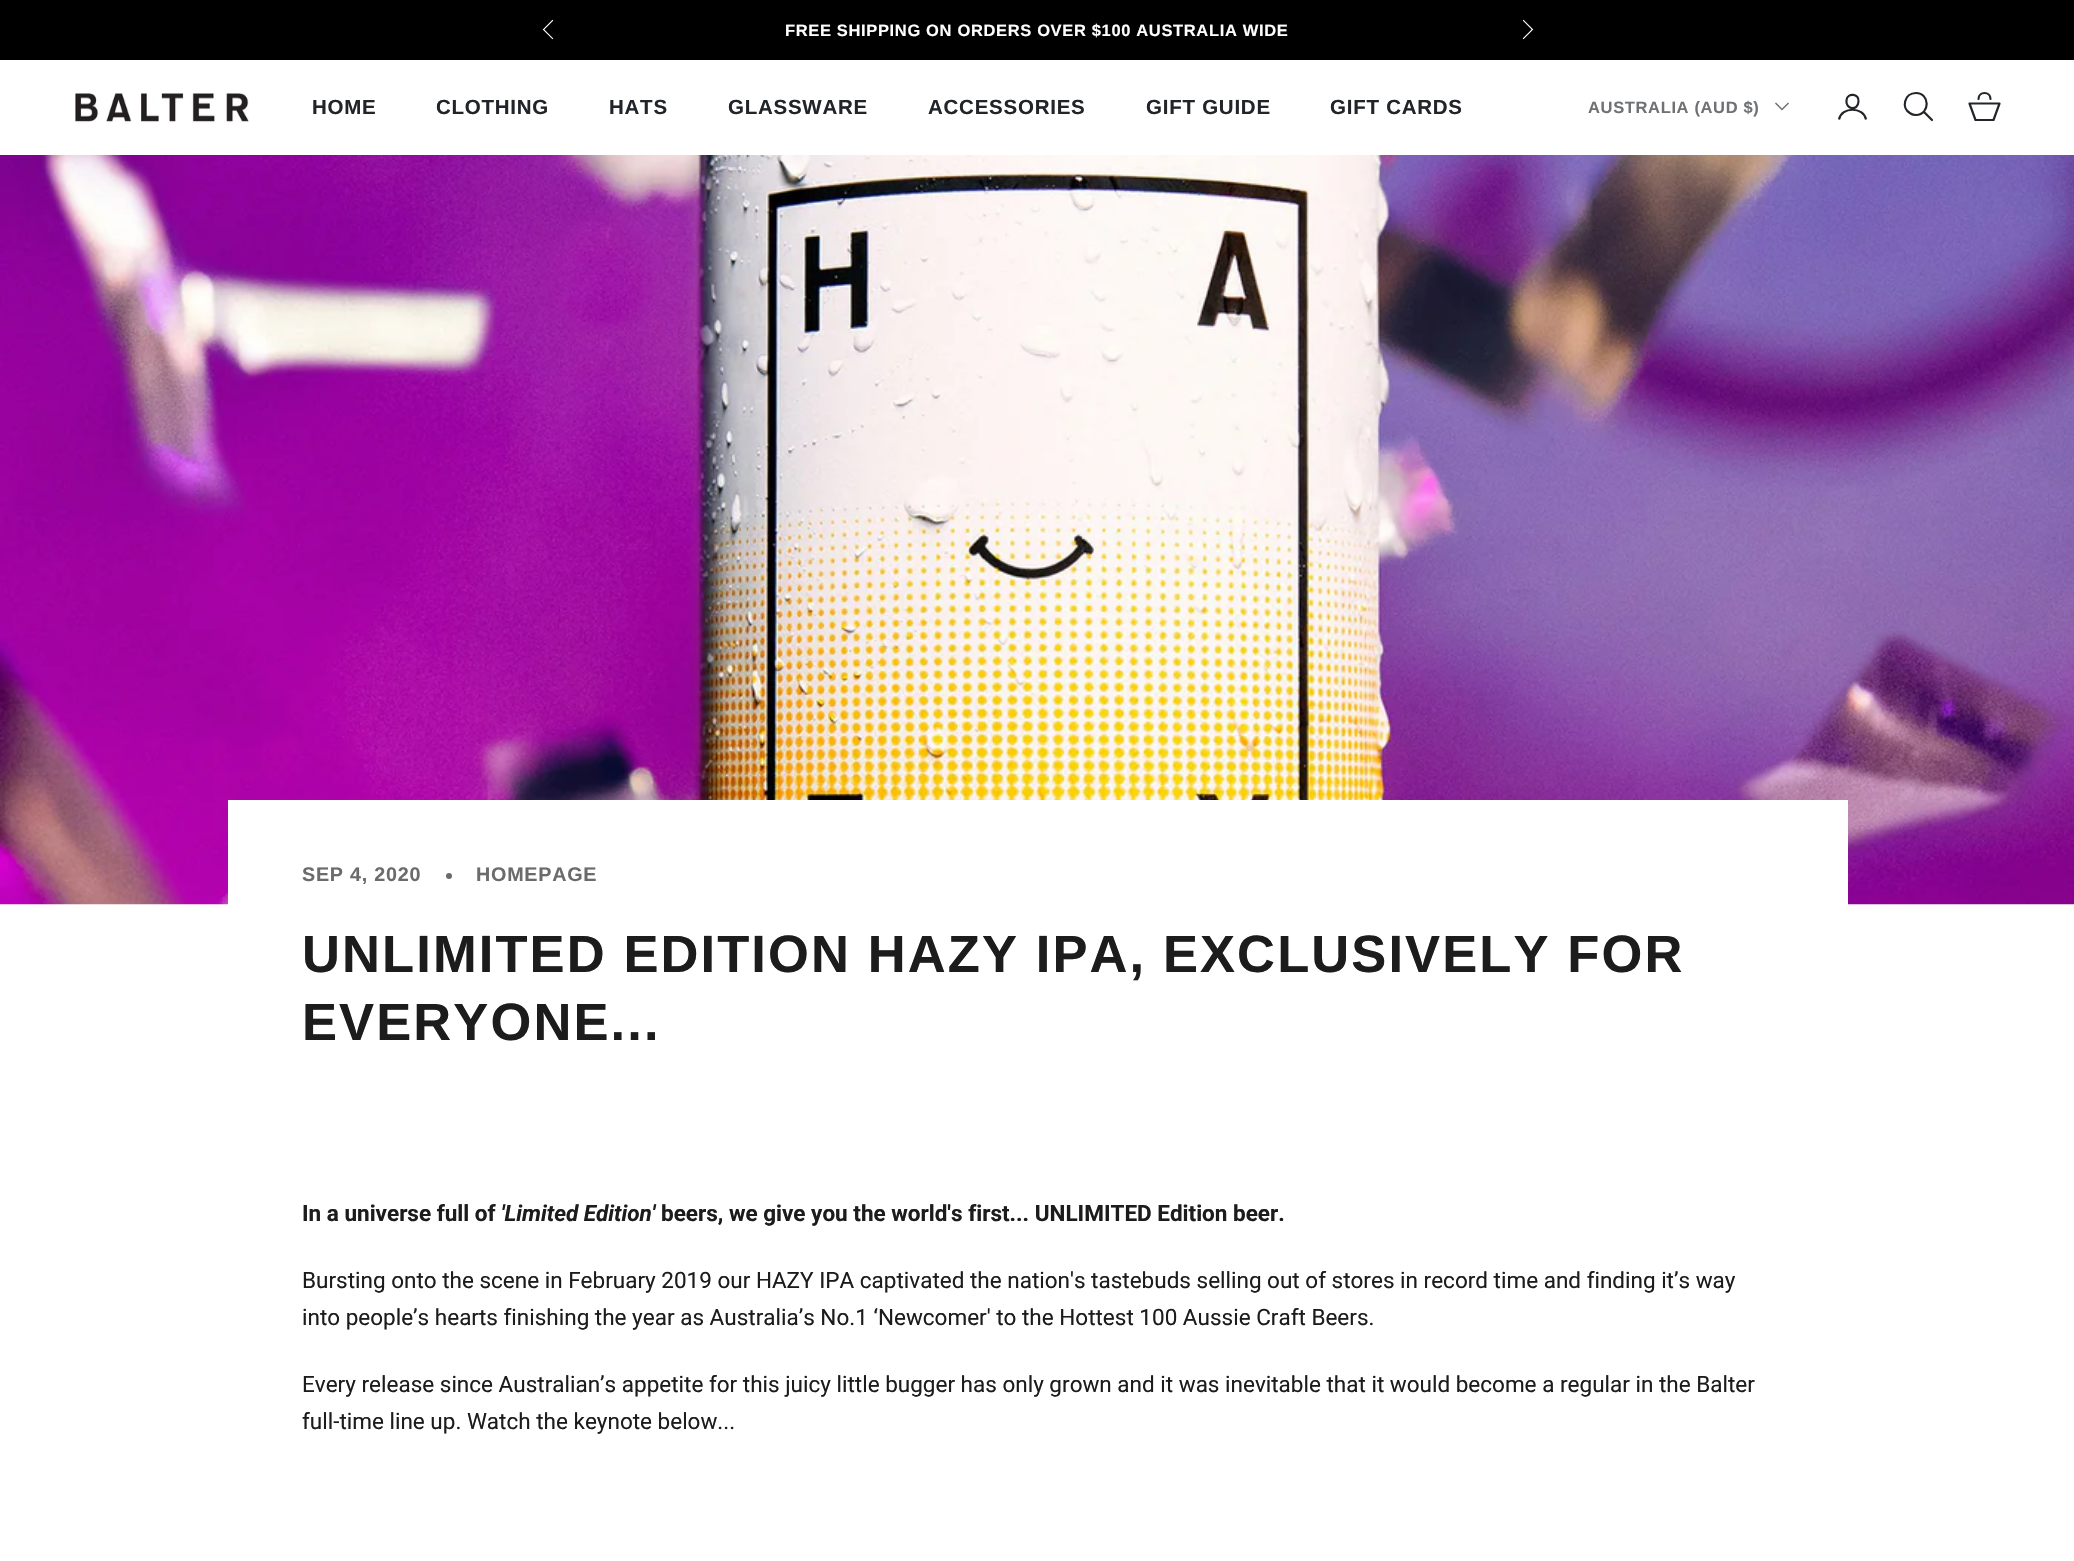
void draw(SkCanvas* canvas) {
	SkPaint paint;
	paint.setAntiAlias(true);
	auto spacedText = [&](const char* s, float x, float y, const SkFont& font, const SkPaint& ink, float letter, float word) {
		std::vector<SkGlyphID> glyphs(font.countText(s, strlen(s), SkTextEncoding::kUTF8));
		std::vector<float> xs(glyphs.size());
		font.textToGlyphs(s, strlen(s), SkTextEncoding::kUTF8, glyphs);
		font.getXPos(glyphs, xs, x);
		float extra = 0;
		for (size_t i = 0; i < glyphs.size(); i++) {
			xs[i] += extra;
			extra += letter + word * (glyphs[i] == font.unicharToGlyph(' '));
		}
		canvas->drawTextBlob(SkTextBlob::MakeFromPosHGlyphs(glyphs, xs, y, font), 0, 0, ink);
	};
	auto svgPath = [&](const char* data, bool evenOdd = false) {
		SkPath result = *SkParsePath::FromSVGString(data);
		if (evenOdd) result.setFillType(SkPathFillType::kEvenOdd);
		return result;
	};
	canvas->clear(0xffffffff);
	paint.setColor(0xff000000);
	canvas->drawRect(SkRect::MakeXYWH(0, 0, 2074, 60), paint);
	paint.setStroke(true);
	paint.setStrokeWidth(1.1);
	paint.setStrokeCap(SkPaint::kSquare_Cap);
	paint.setColor(0xffffffff);
	canvas->drawPath(svgPath("M552.5 20.5L543.5 29.5L552.5 38.5"), paint);
	SkFont f1(fontMgr->matchFamilyStyle("Liberation Sans", SkFontStyle::Bold()), 16.5);
	f1.setSubpixel(true);
	paint.setStroke(false);
	spacedText("FREE SHIPPING ON ORDERS OVER $100 AUSTRALIA WIDE", 785, 36, f1, paint, 0.65, 0);
	paint.setStroke(true);
	canvas->drawPath(svgPath("M1523.5 38.5L1532.5 29.5L1523.5 20.5"), paint);
	canvas->drawImageRect(SkImages::DeferredFromEncodedData(SkData::MakeFromFileName("img1.png")), SkRect::MakeXYWH(75, 93, 174, 31), SkSamplingOptions());
	SkFont f2(fontMgr->matchFamilyStyle("Liberation Sans", SkFontStyle::Bold()), 20.5);
	f2.setSubpixel(true);
	paint.setStroke(false);
	paint.setColor(0xff212529);
	spacedText("HOME", 312, 114, f2, paint, 0.75, 0);
	spacedText("CLOTHING", 436, 114, f2, paint, 0.75, 0);
	spacedText("HATS", 609, 114, f2, paint, 0.75, 0);
	spacedText("GLASSWARE", 728, 114, f2, paint, 0.75, 0);
	spacedText("ACCESSORIES", 928, 114, f2, paint, 0.75, 0);
	spacedText("GIFT GUIDE", 1146, 114, f2, paint, 0.75, 0);
	spacedText("GIFT CARDS", 1330, 114, f2, paint, 0.75, 0);
	paint.setColor(0xff6f7174);
	spacedText("AUSTRALIA (AUD $)", 1588, 113, f1, paint, 0.65, 0);
	paint.setStroke(true);
	paint.setStrokeWidth(1.5);
	canvas->drawPath(svgPath("M1776 103.5L1782 109.5L1788 103.5"), paint);
	paint.setStrokeWidth(2.2);
	paint.setStrokeCap(SkPaint::kRound_Cap);
	paint.setStrokeJoin(SkPaint::kRound_Join);
	paint.setColor(0xff212529);
	canvas->drawPath(svgPath("M1858.5 101.5C1858 111.5 1845 109.5 1846.5 100C1847.5 92.5 1859.5 93.5 1858.5 101.5Z"), paint);
	paint.setStrokeCap(SkPaint::kButt_Cap);
	paint.setStrokeJoin(SkPaint::kMiter_Join);
	canvas->drawPath(svgPath("M1839 119.5C1841.5 106.5 1863.5 106.5 1866 119.5"), paint);
	canvas->drawPath(svgPath("M1916 93C1904.5 93 1900.5 108 1910.5 113.5C1912 114.5 1914 115 1916 115C1930.5 114.5 1930 93 1916 93Z"), paint);
	paint.setStrokeCap(SkPaint::kRound_Cap);
	canvas->drawPath(svgPath("M1924.5 112.5L1932 120"), paint);
	paint.setStrokeJoin(SkPaint::kRound_Join);
	canvas->drawPath(svgPath("M1969.5 103.5H1999.5L1993.5 120H1975.5ZM1990.5 99C1990.5 91 1978.5 91 1978.5 99"), paint);
	canvas->drawImageRect(SkImages::DeferredFromEncodedData(SkData::MakeFromFileName("img2.png")), SkRect::MakeXYWH(0, 155, 2074, 750), SkSamplingOptions());
	paint.setStroke(false);
	paint.setColor(0xffffffff);
	canvas->drawRect(SkRect::MakeXYWH(228, 800, 1620, 105), paint);
	SkFont f3(fontMgr->matchFamilyStyle("Liberation Sans", SkFontStyle::Bold()), 19.75);
	f3.setSubpixel(true);
	paint.setColor(0xff6b6b6b);
	spacedText("SEP 4, 2020", 302, 881, f3, paint, 0.75, 0);
	canvas->drawCircle(449, 876, 3, paint);
	spacedText("HOMEPAGE", 476, 881, f3, paint, 0.75, 0);
	SkFont f4(fontMgr->matchFamilyStyle("Liberation Sans", SkFontStyle::Bold()), 52.5);
	f4.setSubpixel(true);
	paint.setColor(0xff1c1c1c);
	spacedText("UNLIMITED EDITION HAZY IPA, EXCLUSIVELY FOR", 302, 972, f4, paint, 2.1, 0);
	spacedText("EVERYONE...", 302, 1040, f4, paint, 2.1, 0);
	SkFont f5(fontMgr->matchFamilyStyle("Roboto", SkFontStyle::Bold()), 22.5);
	f5.setSubpixel(true);
	canvas->drawString("In a universe full of", 302, 1221, f5, paint);
	SkFont f6(fontMgr->matchFamilyStyle("Roboto", SkFontStyle::BoldItalic()), 22.5);
	f6.setSubpixel(true);
	canvas->drawString("'Limited Edition'", 501, 1221, f6, paint);
	canvas->drawString("beers, we give you the world's first... UNLIMITED Edition beer.", 661, 1221, f5, paint);
	SkFont f7(fontMgr->matchFamilyStyle("Roboto", SkFontStyle::Normal()), 22.5);
	f7.setSubpixel(true);
	canvas->drawString("Bursting onto the scene in February 2019 our HAZY IPA captivated the nation's tastebuds selling out of stores in record time and finding it’s way", 302, 1288, f7, paint);
	canvas->drawString("into people’s hearts finishing the year as Australia’s No.1 ‘Newcomer' to the Hottest 100 Aussie Craft Beers.", 302, 1325, f7, paint);
	canvas->drawString("Every release since Australian’s appetite for this juicy little bugger has only grown and it was inevitable that it would become a regular in the Balter", 302, 1392, f7, paint);
	canvas->drawString("full-time line up. Watch the keynote below...", 302, 1429, f7, paint);
}
